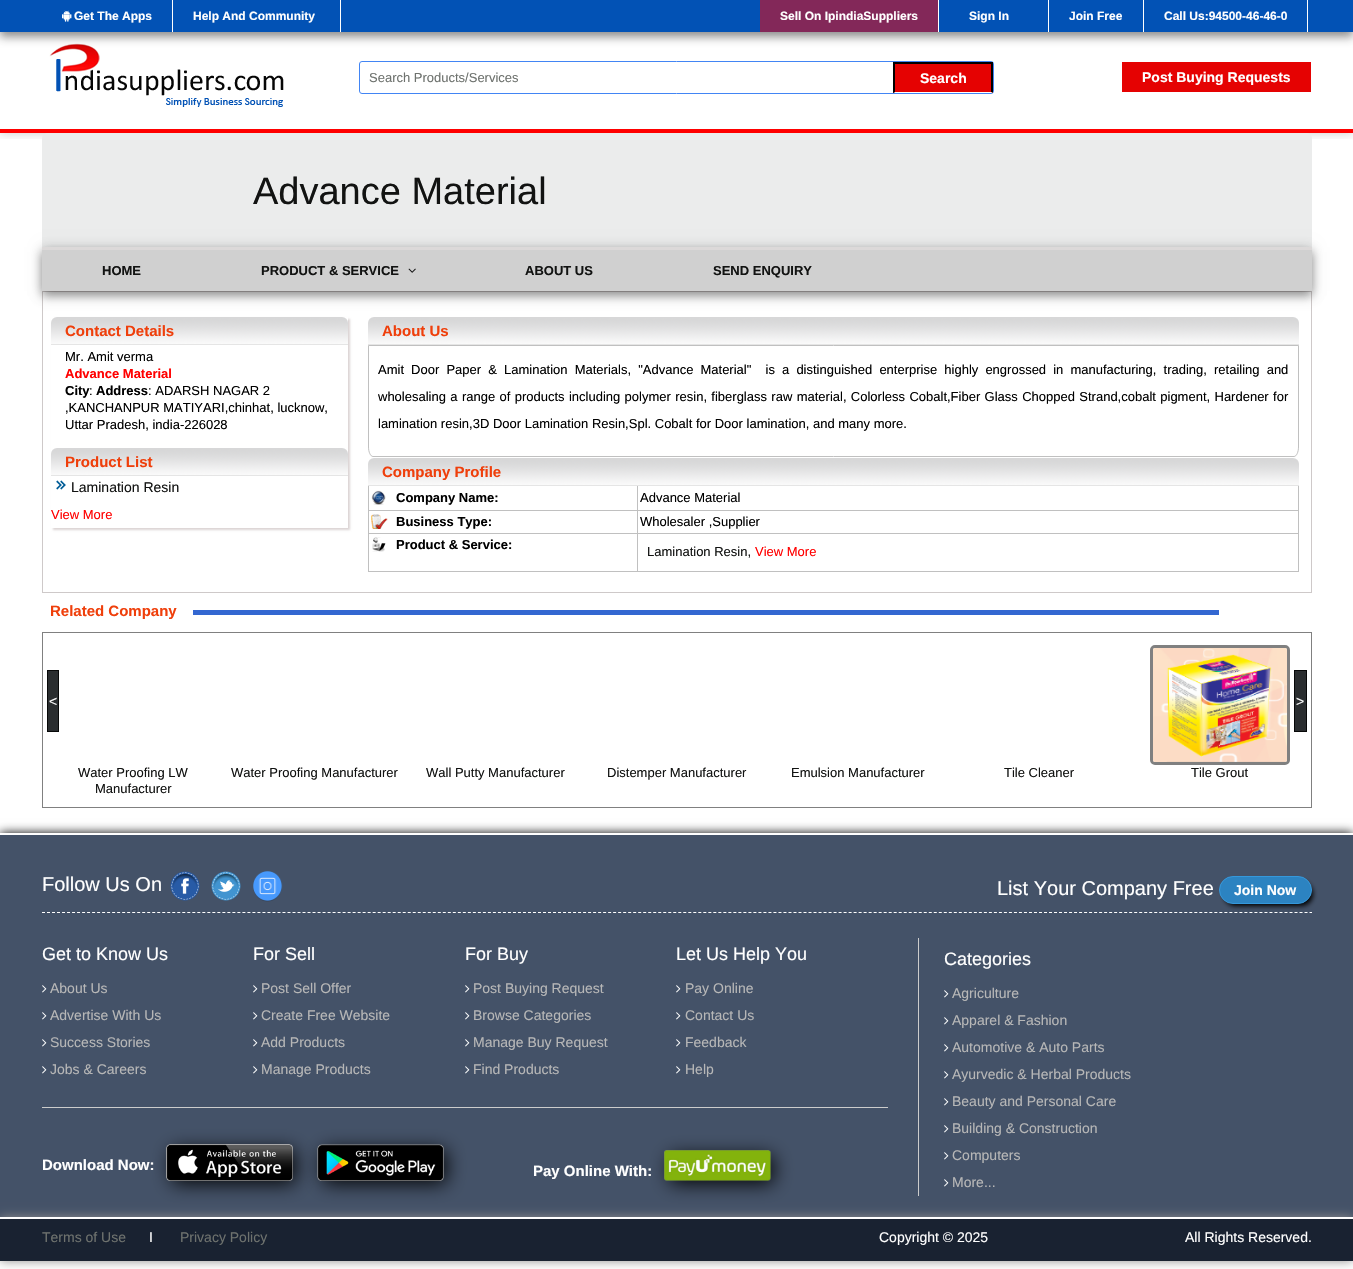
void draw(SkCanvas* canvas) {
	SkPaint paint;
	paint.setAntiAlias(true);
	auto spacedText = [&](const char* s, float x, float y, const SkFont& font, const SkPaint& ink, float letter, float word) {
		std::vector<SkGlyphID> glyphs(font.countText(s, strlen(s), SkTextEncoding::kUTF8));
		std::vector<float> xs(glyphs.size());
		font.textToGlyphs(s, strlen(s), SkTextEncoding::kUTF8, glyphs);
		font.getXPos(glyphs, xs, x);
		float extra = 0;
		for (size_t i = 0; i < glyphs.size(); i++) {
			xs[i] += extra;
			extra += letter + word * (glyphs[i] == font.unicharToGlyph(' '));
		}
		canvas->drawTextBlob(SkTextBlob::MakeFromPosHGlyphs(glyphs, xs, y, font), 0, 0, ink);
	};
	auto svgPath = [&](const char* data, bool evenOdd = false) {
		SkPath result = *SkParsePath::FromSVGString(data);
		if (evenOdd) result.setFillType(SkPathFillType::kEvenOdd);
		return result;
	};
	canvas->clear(0xffffffff);
	canvas->save();
	canvas->clipRect(SkRect::MakeXYWH(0, 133, 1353, 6));
	paint.setColor(0x33000000);
	paint.setMaskFilter(SkMaskFilter::MakeBlur(kNormal_SkBlurStyle, 5));
	canvas->drawRect(SkRect::MakeXYWH(0, 32, 1353, 101), paint);
	paint.setMaskFilter(nullptr);
	canvas->restore();
	canvas->drawImageRect(SkImages::DeferredFromEncodedData(SkData::MakeFromFileName("img2.png")), SkRect::MakeXYWH(49, 43, 235, 64), SkSamplingOptions());
	paint.setColor(0x1f000000);
	paint.setMaskFilter(SkMaskFilter::MakeBlur(kNormal_SkBlurStyle, 6));
	canvas->drawRect(SkRect::MakeXYWH(0, 0, 1353, 32), paint);
	paint.setMaskFilter(nullptr);
	paint.setColor(0x66000000);
	paint.setMaskFilter(SkMaskFilter::MakeBlur(kNormal_SkBlurStyle, 5));
	canvas->drawRect(SkRect::MakeXYWH(0, 5, 1353, 32), paint);
	paint.setMaskFilter(nullptr);
	paint.setColor(0xff0252b5);
	canvas->drawRect(SkRect::MakeXYWH(0, 0, 1353, 32), paint);
	paint.setColor(0xffffffff);
	canvas->drawRect(SkRect::MakeXYWH(172, 0, 1, 32), paint);
	canvas->drawImageRect(SkImages::DeferredFromEncodedData(SkData::MakeFromFileName("img1.png")), SkRect::MakeXYWH(62, 10, 10, 12), SkSamplingOptions());
	SkFont f1(fontMgr->matchFamilyStyle("Liberation Sans", SkFontStyle::Bold()), 12);
	f1.setSubpixel(true);
	canvas->drawString("Get The Apps", 74, 20, f1, paint);
	canvas->drawRect(SkRect::MakeXYWH(340, 0, 1, 32), paint);
	canvas->drawString("Help And Community", 193, 20, f1, paint);
	paint.setColor(0xff832859);
	canvas->drawRect(SkRect::MakeXYWH(760, 0, 178, 32), paint);
	paint.setColor(0xffffffff);
	canvas->drawRect(SkRect::MakeXYWH(938, 0, 1, 32), paint);
	canvas->drawString("Sell On IpindiaSuppliers", 780, 20, f1, paint);
	canvas->drawRect(SkRect::MakeXYWH(1048, 0, 1, 32), paint);
	canvas->drawString("Sign In", 969, 20, f1, paint);
	canvas->drawRect(SkRect::MakeXYWH(1143, 0, 1, 32), paint);
	canvas->drawString("Join Free", 1069, 20, f1, paint);
	canvas->drawRect(SkRect::MakeXYWH(1307, 0, 1, 32), paint);
	canvas->drawString("Call Us:94500-46-46-0", 1164, 20, f1, paint);
	paint.setColor(0xffff0000);
	canvas->drawRect(SkRect::MakeXYWH(0, 129, 1353, 4), paint);
	paint.setStroke(true);
	paint.setStrokeWidth(1);
	paint.setColor(0xff4285f4);
	canvas->drawRoundRect(SkRect::MakeXYWH(359.5, 61.5, 634, 32), 2.5, 2.5, paint);
	SkFont f2(fontMgr->matchFamilyStyle("Liberation Sans", SkFontStyle::Normal()), 13);
	f2.setSubpixel(true);
	paint.setStroke(false);
	paint.setColor(0xff6e726e);
	canvas->drawString("Search Products/Services", 369, 82, f2, paint);
	paint.setColor(0xffe50202);
	canvas->drawRect(SkRect::MakeXYWH(893, 64, 100, 29), paint);
	paint.setColor(0xff000000);
	canvas->drawRect(SkRect::MakeXYWH(893, 62, 100, 2), paint);
	canvas->drawPath(svgPath("M993 62V93L991 92V64Z"), paint);
	paint.setColor(0xffffffff);
	canvas->drawPath(svgPath("M993 93H893L895 92H991Z"), paint);
	paint.setColor(0xff000000);
	canvas->drawPath(svgPath("M893 93V62L895 64V92Z"), paint);
	SkFont f3(fontMgr->matchFamilyStyle("Liberation Sans", SkFontStyle::Bold()), 14);
	f3.setSubpixel(true);
	paint.setColor(0xffffffff);
	canvas->drawString("Search", 920, 83, f3, paint);
	paint.setColor(0xffe50202);
	canvas->drawRect(SkRect::MakeXYWH(1122, 62, 189, 30), paint);
	paint.setColor(0xffffffff);
	canvas->drawString("Post Buying Requests", 1142, 82, f3, paint);
	paint.setColor(0xffebecec);
	canvas->drawPath(svgPath("M48 133H1306C1309.5 133 1312 135.5 1312 139V247H42V139C42 135.5 44.5 133 48 133Z"), paint);
	SkFont f4(fontMgr->matchFamilyStyle("Liberation Sans", SkFontStyle::Normal()), 38);
	f4.setSubpixel(true);
	paint.setColor(0xff121312);
	canvas->drawString("Advance Material", 253, 204, f4, paint);
	paint.setStroke(true);
	paint.setColor(0xffcec9c9);
	canvas->drawRect(SkRect::MakeXYWH(42.5, 291.5, 1269, 301), paint);
	paint.setStroke(false);
	paint.setColor(0x1f000000);
	paint.setMaskFilter(SkMaskFilter::MakeBlur(kNormal_SkBlurStyle, 6));
	canvas->drawRect(SkRect::MakeXYWH(42, 247, 1270, 44), paint);
	paint.setMaskFilter(nullptr);
	paint.setColor(0x66000000);
	paint.setMaskFilter(SkMaskFilter::MakeBlur(kNormal_SkBlurStyle, 5));
	canvas->drawRect(SkRect::MakeXYWH(42, 252, 1270, 44), paint);
	paint.setMaskFilter(nullptr);
	paint.setColor(0xffd0d0d0);
	canvas->drawRect(SkRect::MakeXYWH(42, 250, 1270, 41), paint);
	paint.setColor(0xffdcd9d9);
	canvas->drawRect(SkRect::MakeXYWH(42, 247, 1270, 3), paint);
	SkFont f5(fontMgr->matchFamilyStyle("Liberation Sans", SkFontStyle::Bold()), 13);
	f5.setSubpixel(true);
	paint.setColor(0xff121312);
	canvas->drawString("HOME", 102, 275, f5, paint);
	canvas->drawString("PRODUCT & SERVICE", 261, 275, f5, paint);
	canvas->drawImageRect(SkImages::DeferredFromEncodedData(SkData::MakeFromFileName("img3.png")), SkRect::MakeXYWH(408, 268, 8, 5), SkSamplingOptions());
	canvas->drawString("ABOUT US", 525, 275, f5, paint);
	canvas->drawString("SEND ENQUIRY", 713, 275, f5, paint);
	canvas->save();
	canvas->clipPath(svgPath("M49 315H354V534H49ZM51 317H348V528H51Z", true), true);
	paint.setColor(0xffdcd5d5);
	paint.setMaskFilter(SkMaskFilter::MakeBlur(kNormal_SkBlurStyle, 1));
	canvas->drawRect(SkRect::MakeXYWH(53, 319, 297, 211), paint);
	paint.setMaskFilter(nullptr);
	canvas->restore();
	canvas->drawImageRect(SkImages::DeferredFromEncodedData(SkData::MakeFromFileName("img4.png")), SkRect::MakeXYWH(51, 317, 297, 27), SkSamplingOptions());
	paint.setColor(0xffe5e5e5);
	canvas->drawRect(SkRect::MakeXYWH(51, 344, 297, 1), paint);
	SkFont f6(fontMgr->matchFamilyStyle("Liberation Sans", SkFontStyle::Bold()), 15);
	f6.setSubpixel(true);
	paint.setColor(0xffef3f0b);
	canvas->drawString("Contact Details", 65, 336, f6, paint);
	paint.setColor(0xff000000);
	canvas->drawString("Mr. Amit verma", 65, 361, f2, paint);
	paint.setColor(0xffff0000);
	canvas->drawString("Advance Material", 65, 378, f5, paint);
	paint.setColor(0xff000000);
	canvas->drawString("City", 65, 395, f5, paint);
	canvas->drawString(":", 89, 395, f2, paint);
	canvas->drawString("Address", 96, 395, f5, paint);
	canvas->drawString(": ADARSH NAGAR 2", 148, 395, f2, paint);
	canvas->drawString(",KANCHANPUR MATIYARI,chinhat, lucknow,", 65, 412, f2, paint);
	canvas->drawString("Uttar Pradesh, india-226028", 65, 429, f2, paint);
	canvas->drawImageRect(SkImages::DeferredFromEncodedData(SkData::MakeFromFileName("img4.png")), SkRect::MakeXYWH(51, 448, 297, 27), SkSamplingOptions());
	paint.setColor(0xffe5e5e5);
	canvas->drawRect(SkRect::MakeXYWH(51, 475, 297, 1), paint);
	paint.setColor(0xffef3f0b);
	canvas->drawString("Product List", 65, 467, f6, paint);
	canvas->drawImageRect(SkImages::DeferredFromEncodedData(SkData::MakeFromFileName("img5.png")), SkRect::MakeXYWH(56, 480, 10, 10), SkSamplingOptions());
	SkFont f7(fontMgr->matchFamilyStyle("Liberation Sans", SkFontStyle::Normal()), 14);
	f7.setSubpixel(true);
	paint.setColor(0xff121312);
	canvas->drawString("Lamination Resin", 71, 492, f7, paint);
	paint.setColor(0xffff0000);
	canvas->drawString("View More", 51, 519, f2, paint);
	canvas->drawImageRect(SkImages::DeferredFromEncodedData(SkData::MakeFromFileName("img6.png")), SkRect::MakeXYWH(368, 317, 931, 27), SkSamplingOptions());
	paint.setColor(0xffe5e5e5);
	canvas->drawRect(SkRect::MakeXYWH(368, 344, 931, 1), paint);
	paint.setColor(0xffef3f0b);
	canvas->drawString("About Us", 382, 336, f6, paint);
	paint.setStroke(true);
	paint.setColor(0xffc0c0c0);
	canvas->drawPath(svgPath("M368.5 345.5H1298.5V447C1298.5 452 1296.5 456.5 1294 456.5H373C370.5 456.5 368.5 452 368.5 447Z"), paint);
	paint.setStroke(false);
	paint.setColor(0xff000000);
	spacedText("Amit Door Paper & Lamination Materials, \"Advance Material\"  is a distinguished enterprise highly engrossed in manufacturing, trading, retailing and", 378, 374, f2, paint, 0, 3.5);
	spacedText("wholesaling a range of products including polymer resin, fiberglass raw material, Colorless Cobalt,Fiber Glass Chopped Strand,cobalt pigment, Hardener for", 378, 401, f2, paint, 0, 0.75);
	canvas->drawString("lamination resin,3D Door Lamination Resin,Spl. Cobalt for Door lamination, and many more.", 378, 428, f2, paint);
	canvas->drawImageRect(SkImages::DeferredFromEncodedData(SkData::MakeFromFileName("img6.png")), SkRect::MakeXYWH(368, 458, 931, 27), SkSamplingOptions());
	paint.setColor(0xffe5e5e5);
	canvas->drawRect(SkRect::MakeXYWH(368, 485, 931, 1), paint);
	paint.setColor(0xffef3f0b);
	canvas->drawString("Company Profile", 382, 477, f6, paint);
	paint.setColor(0xffc0c0c0);
	canvas->drawRect(SkRect::MakeXYWH(1298, 486, 1, 86), paint);
	canvas->drawRect(SkRect::MakeXYWH(637, 571, 662, 1), paint);
	canvas->drawRect(SkRect::MakeXYWH(637, 533, 1, 39), paint);
	canvas->drawRect(SkRect::MakeXYWH(637, 533, 662, 1), paint);
	canvas->drawRect(SkRect::MakeXYWH(637, 510, 1, 24), paint);
	canvas->drawRect(SkRect::MakeXYWH(637, 510, 662, 1), paint);
	canvas->drawRect(SkRect::MakeXYWH(637, 486, 1, 25), paint);
	canvas->drawRect(SkRect::MakeXYWH(368, 571, 270, 1), paint);
	canvas->drawRect(SkRect::MakeXYWH(368, 533, 1, 39), paint);
	canvas->drawRect(SkRect::MakeXYWH(368, 533, 270, 1), paint);
	canvas->drawRect(SkRect::MakeXYWH(368, 510, 1, 24), paint);
	canvas->drawRect(SkRect::MakeXYWH(368, 510, 270, 1), paint);
	canvas->drawRect(SkRect::MakeXYWH(368, 486, 1, 25), paint);
	canvas->drawImageRect(SkImages::DeferredFromEncodedData(SkData::MakeFromFileName("img7.png")), SkRect::MakeXYWH(371, 490, 15, 15), SkSamplingOptions());
	paint.setColor(0xff000000);
	canvas->drawString("Company Name:", 396, 502, f5, paint);
	canvas->drawString("Advance Material", 640, 502, f2, paint);
	canvas->drawImageRect(SkImages::DeferredFromEncodedData(SkData::MakeFromFileName("img8.png")), SkRect::MakeXYWH(371, 514, 17, 15), SkSamplingOptions());
	canvas->drawString("Business Type:", 396, 526, f5, paint);
	canvas->drawString("Wholesaler ,Supplier", 640, 526, f2, paint);
	canvas->drawImageRect(SkImages::DeferredFromEncodedData(SkData::MakeFromFileName("img9.png")), SkRect::MakeXYWH(372, 537, 14, 15), SkSamplingOptions());
	canvas->drawString("Product & Service:", 396, 549, f5, paint);
	paint.setColor(0xff121312);
	canvas->drawString("Lamination Resin,", 647, 556, f2, paint);
	paint.setColor(0xffff0000);
	canvas->drawString("View More", 755, 556, f2, paint);
	paint.setColor(0xffef3f0b);
	canvas->drawString("Related Company", 50, 616, f6, paint);
	paint.setColor(0xff3367d1);
	canvas->drawRect(SkRect::MakeXYWH(193, 610, 1026, 5), paint);
	paint.setStroke(true);
	paint.setColor(0xff808080);
	canvas->drawRect(SkRect::MakeXYWH(42.5, 632.5, 1269, 175), paint);
	paint.setStroke(false);
	paint.setColor(0xff2a2d2f);
	canvas->drawRect(SkRect::MakeXYWH(47.5, 670.5, 11, 61), paint);
	paint.setStroke(true);
	paint.setColor(0xff070808);
	canvas->drawRect(SkRect::MakeXYWH(47.5, 670.5, 11, 61), paint);
	paint.setStroke(false);
	paint.setColor(0xffffffff);
	canvas->drawString("<", 49, 706, f7, paint);
	paint.setColor(0xff2a2d2f);
	canvas->drawRect(SkRect::MakeXYWH(1294.5, 670.5, 12, 61), paint);
	paint.setStroke(true);
	paint.setColor(0xff070808);
	canvas->drawRect(SkRect::MakeXYWH(1294.5, 670.5, 12, 61), paint);
	paint.setStroke(false);
	paint.setColor(0xffffffff);
	canvas->drawString(">", 1296, 706, f7, paint);
	paint.setColor(0xff121312);
	canvas->drawString("Water Proofing LW", 78, 777, f2, paint);
	canvas->drawString("Manufacturer", 95, 793, f2, paint);
	canvas->drawString("Water Proofing Manufacturer", 231, 777, f2, paint);
	canvas->drawString("Wall Putty Manufacturer", 426, 777, f2, paint);
	canvas->drawString("Distemper Manufacturer", 607, 777, f2, paint);
	canvas->drawString("Emulsion Manufacturer", 791, 777, f2, paint);
	canvas->drawString("Tile Cleaner", 1004, 777, f2, paint);
	paint.setStroke(true);
	paint.setStrokeWidth(3);
	paint.setColor(0xff808080);
	canvas->drawRoundRect(SkRect::MakeXYWH(1151.5, 646.5, 137, 117), 3.5, 3.5, paint);
	canvas->drawImageRect(SkImages::DeferredFromEncodedData(SkData::MakeFromFileName("img10.png")), SkRect::MakeXYWH(1153, 648, 134, 114), SkSamplingOptions());
	paint.setStroke(false);
	paint.setColor(0xff121312);
	canvas->drawString("Tile Grout", 1191, 777, f2, paint);
	paint.setColor(0xff000000);
	paint.setMaskFilter(SkMaskFilter::MakeBlur(kNormal_SkBlurStyle, 5));
	canvas->drawRect(SkRect::MakeXYWH(0, 833, 1353, 384), paint);
	paint.setMaskFilter(nullptr);
	paint.setColor(0xff445268);
	canvas->drawRect(SkRect::MakeXYWH(0, 835, 1353, 382), paint);
	paint.setColor(0xffffffff);
	canvas->drawRect(SkRect::MakeXYWH(0, 833, 1353, 2), paint);
	paint.setStroke(true);
	paint.setStrokeWidth(1);
	paint.setPathEffect(SkDashPathEffect::Make({{3, 2.01f}}, 0));
	canvas->drawPath(svgPath("M42 912.5H1312"), paint);
	paint.setPathEffect(nullptr);
	SkFont f8(fontMgr->matchFamilyStyle("Liberation Sans", SkFontStyle::Normal()), 20);
	f8.setSubpixel(true);
	paint.setStroke(false);
	canvas->drawString("Follow Us On", 42, 891, f8, paint);
	canvas->drawImageRect(SkImages::DeferredFromEncodedData(SkData::MakeFromFileName("img11.png")), SkRect::MakeXYWH(170, 871, 30, 30), SkSamplingOptions());
	canvas->drawImageRect(SkImages::DeferredFromEncodedData(SkData::MakeFromFileName("img12.png")), SkRect::MakeXYWH(211, 871, 30, 30), SkSamplingOptions());
	canvas->drawImageRect(SkImages::DeferredFromEncodedData(SkData::MakeFromFileName("img13.png")), SkRect::MakeXYWH(253, 871, 30, 31), SkSamplingOptions());
	canvas->drawString("List Your Company Free", 997, 895, f8, paint);
	paint.setColor(0xff000000);
	paint.setMaskFilter(SkMaskFilter::MakeBlur(kNormal_SkBlurStyle, 2.5));
	canvas->drawRoundRect(SkRect::MakeXYWH(1224, 882, 89, 24), 12, 12, paint);
	paint.setMaskFilter(nullptr);
	paint.setColor(0xff2c83c1);
	canvas->drawRoundRect(SkRect::MakeXYWH(1219.5, 876.5, 92, 27), 13.5, 13.5, paint);
	paint.setStroke(true);
	paint.setColor(0xff3598db);
	canvas->drawRoundRect(SkRect::MakeXYWH(1219.5, 876.5, 92, 27), 13.5, 13.5, paint);
	paint.setStroke(false);
	paint.setColor(0xffffffff);
	canvas->drawString("Join Now", 1234, 895, f3, paint);
	SkFont f9(fontMgr->matchFamilyStyle("Liberation Sans", SkFontStyle::Normal()), 18);
	f9.setSubpixel(true);
	canvas->drawString("Get to Know Us", 42, 960, f9, paint);
	canvas->drawImageRect(SkImages::DeferredFromEncodedData(SkData::MakeFromFileName("img14.png")), SkRect::MakeXYWH(42, 985, 5, 8), SkSamplingOptions());
	paint.setColor(0xffb7b7b7);
	canvas->drawString("About Us", 50, 993, f7, paint);
	canvas->drawImageRect(SkImages::DeferredFromEncodedData(SkData::MakeFromFileName("img14.png")), SkRect::MakeXYWH(42, 1012, 5, 8), SkSamplingOptions());
	canvas->drawString("Advertise With Us", 50, 1020, f7, paint);
	canvas->drawImageRect(SkImages::DeferredFromEncodedData(SkData::MakeFromFileName("img14.png")), SkRect::MakeXYWH(42, 1039, 5, 8), SkSamplingOptions());
	canvas->drawString("Success Stories", 50, 1047, f7, paint);
	canvas->drawImageRect(SkImages::DeferredFromEncodedData(SkData::MakeFromFileName("img14.png")), SkRect::MakeXYWH(42, 1066, 5, 8), SkSamplingOptions());
	canvas->drawString("Jobs & Careers", 50, 1074, f7, paint);
	paint.setColor(0xffffffff);
	canvas->drawString("For Sell", 253, 960, f9, paint);
	canvas->drawImageRect(SkImages::DeferredFromEncodedData(SkData::MakeFromFileName("img14.png")), SkRect::MakeXYWH(253, 985, 5, 8), SkSamplingOptions());
	paint.setColor(0xffb7b7b7);
	canvas->drawString("Post Sell Offer", 261, 993, f7, paint);
	canvas->drawImageRect(SkImages::DeferredFromEncodedData(SkData::MakeFromFileName("img14.png")), SkRect::MakeXYWH(253, 1012, 5, 8), SkSamplingOptions());
	canvas->drawString("Create Free Website", 261, 1020, f7, paint);
	canvas->drawImageRect(SkImages::DeferredFromEncodedData(SkData::MakeFromFileName("img14.png")), SkRect::MakeXYWH(253, 1039, 5, 8), SkSamplingOptions());
	canvas->drawString("Add Products", 261, 1047, f7, paint);
	canvas->drawImageRect(SkImages::DeferredFromEncodedData(SkData::MakeFromFileName("img14.png")), SkRect::MakeXYWH(253, 1066, 5, 8), SkSamplingOptions());
	canvas->drawString("Manage Products", 261, 1074, f7, paint);
	paint.setColor(0xffffffff);
	canvas->drawString("For Buy", 465, 960, f9, paint);
	canvas->drawImageRect(SkImages::DeferredFromEncodedData(SkData::MakeFromFileName("img14.png")), SkRect::MakeXYWH(465, 985, 5, 8), SkSamplingOptions());
	paint.setColor(0xffb7b7b7);
	canvas->drawString("Post Buying Request", 473, 993, f7, paint);
	canvas->drawImageRect(SkImages::DeferredFromEncodedData(SkData::MakeFromFileName("img14.png")), SkRect::MakeXYWH(465, 1012, 5, 8), SkSamplingOptions());
	canvas->drawString("Browse Categories", 473, 1020, f7, paint);
	canvas->drawImageRect(SkImages::DeferredFromEncodedData(SkData::MakeFromFileName("img14.png")), SkRect::MakeXYWH(465, 1039, 5, 8), SkSamplingOptions());
	canvas->drawString("Manage Buy Request", 473, 1047, f7, paint);
	canvas->drawImageRect(SkImages::DeferredFromEncodedData(SkData::MakeFromFileName("img14.png")), SkRect::MakeXYWH(465, 1066, 5, 8), SkSamplingOptions());
	canvas->drawString("Find Products", 473, 1074, f7, paint);
	paint.setColor(0xffffffff);
	canvas->drawString("Let Us Help You", 676, 960, f9, paint);
	canvas->drawImageRect(SkImages::DeferredFromEncodedData(SkData::MakeFromFileName("img14.png")), SkRect::MakeXYWH(676, 985, 5, 8), SkSamplingOptions());
	paint.setColor(0xffb7b7b7);
	canvas->drawString("Pay Online", 685, 993, f7, paint);
	canvas->drawImageRect(SkImages::DeferredFromEncodedData(SkData::MakeFromFileName("img14.png")), SkRect::MakeXYWH(676, 1012, 5, 8), SkSamplingOptions());
	canvas->drawString("Contact Us", 685, 1020, f7, paint);
	canvas->drawImageRect(SkImages::DeferredFromEncodedData(SkData::MakeFromFileName("img14.png")), SkRect::MakeXYWH(676, 1039, 5, 8), SkSamplingOptions());
	canvas->drawString("Feedback", 685, 1047, f7, paint);
	canvas->drawImageRect(SkImages::DeferredFromEncodedData(SkData::MakeFromFileName("img14.png")), SkRect::MakeXYWH(676, 1066, 5, 8), SkSamplingOptions());
	canvas->drawString("Help", 685, 1074, f7, paint);
	paint.setColor(0xffcccccc);
	canvas->drawRect(SkRect::MakeXYWH(42, 1107, 846, 1), paint);
	paint.setColor(0xffffffff);
	canvas->drawString("Download Now:", 42, 1170, f6, paint);
	paint.setColor(0xff000000);
	paint.setMaskFilter(SkMaskFilter::MakeBlur(kNormal_SkBlurStyle, 10));
	canvas->drawRect(SkRect::MakeXYWH(172, 1150, 123, 33), paint);
	paint.setMaskFilter(nullptr);
	canvas->drawImageRect(SkImages::DeferredFromEncodedData(SkData::MakeFromFileName("img15.png")), SkRect::MakeXYWH(166, 1144, 127, 37), SkSamplingOptions());
	paint.setMaskFilter(SkMaskFilter::MakeBlur(kNormal_SkBlurStyle, 10));
	canvas->drawRect(SkRect::MakeXYWH(323, 1150, 123, 33), paint);
	paint.setMaskFilter(nullptr);
	canvas->drawImageRect(SkImages::DeferredFromEncodedData(SkData::MakeFromFileName("img16.png")), SkRect::MakeXYWH(317, 1144, 127, 37), SkSamplingOptions());
	paint.setColor(0xffffffff);
	canvas->drawString("Pay Online With:", 533, 1176, f6, paint);
	paint.setColor(0xff000000);
	paint.setMaskFilter(SkMaskFilter::MakeBlur(kNormal_SkBlurStyle, 10));
	canvas->drawRect(SkRect::MakeXYWH(670, 1156, 103, 27), paint);
	paint.setMaskFilter(nullptr);
	canvas->drawImageRect(SkImages::DeferredFromEncodedData(SkData::MakeFromFileName("img17.png")), SkRect::MakeXYWH(664, 1150, 107, 31), SkSamplingOptions());
	paint.setColor(0xffcccccc);
	canvas->drawRect(SkRect::MakeXYWH(918, 938, 1, 258), paint);
	paint.setColor(0xffffffff);
	canvas->drawString("Categories", 944, 965, f9, paint);
	canvas->drawImageRect(SkImages::DeferredFromEncodedData(SkData::MakeFromFileName("img14.png")), SkRect::MakeXYWH(944, 990, 5, 8), SkSamplingOptions());
	paint.setColor(0xffb7b7b7);
	canvas->drawString("Agriculture", 952, 998, f7, paint);
	canvas->drawImageRect(SkImages::DeferredFromEncodedData(SkData::MakeFromFileName("img14.png")), SkRect::MakeXYWH(944, 1017, 5, 8), SkSamplingOptions());
	canvas->drawString("Apparel & Fashion", 952, 1025, f7, paint);
	canvas->drawImageRect(SkImages::DeferredFromEncodedData(SkData::MakeFromFileName("img14.png")), SkRect::MakeXYWH(944, 1044, 5, 8), SkSamplingOptions());
	canvas->drawString("Automotive & Auto Parts", 952, 1052, f7, paint);
	canvas->drawImageRect(SkImages::DeferredFromEncodedData(SkData::MakeFromFileName("img14.png")), SkRect::MakeXYWH(944, 1071, 5, 8), SkSamplingOptions());
	canvas->drawString("Ayurvedic & Herbal Products", 952, 1079, f7, paint);
	canvas->drawImageRect(SkImages::DeferredFromEncodedData(SkData::MakeFromFileName("img14.png")), SkRect::MakeXYWH(944, 1098, 5, 8), SkSamplingOptions());
	canvas->drawString("Beauty and Personal Care", 952, 1106, f7, paint);
	canvas->drawImageRect(SkImages::DeferredFromEncodedData(SkData::MakeFromFileName("img14.png")), SkRect::MakeXYWH(944, 1125, 5, 8), SkSamplingOptions());
	canvas->drawString("Building & Construction", 952, 1133, f7, paint);
	canvas->drawImageRect(SkImages::DeferredFromEncodedData(SkData::MakeFromFileName("img14.png")), SkRect::MakeXYWH(944, 1152, 5, 8), SkSamplingOptions());
	canvas->drawString("Computers", 952, 1160, f7, paint);
	canvas->drawImageRect(SkImages::DeferredFromEncodedData(SkData::MakeFromFileName("img14.png")), SkRect::MakeXYWH(944, 1179, 5, 8), SkSamplingOptions());
	canvas->drawString("More...", 952, 1187, f7, paint);
	paint.setColor(0xff8e8d8d);
	paint.setMaskFilter(SkMaskFilter::MakeBlur(kNormal_SkBlurStyle, 5));
	canvas->drawRect(SkRect::MakeXYWH(0, 1217, 1353, 44), paint);
	paint.setMaskFilter(nullptr);
	paint.setColor(0xff192231);
	canvas->drawRect(SkRect::MakeXYWH(0, 1219, 1353, 42), paint);
	paint.setColor(0xffffffff);
	canvas->drawRect(SkRect::MakeXYWH(0, 1217, 1353, 2), paint);
	paint.setColor(0xff6e726e);
	canvas->drawString("Terms of Use", 42, 1242, f7, paint);
	paint.setColor(0xffffffff);
	canvas->drawString("I", 149, 1242, f7, paint);
	paint.setColor(0xff6e726e);
	canvas->drawString("Privacy Policy", 180, 1242, f7, paint);
	paint.setColor(0xffffffff);
	canvas->drawString("Copyright © 2025", 879, 1242, f7, paint);
	canvas->drawString("All Rights Reserved.", 1185, 1242, f7, paint);
}
